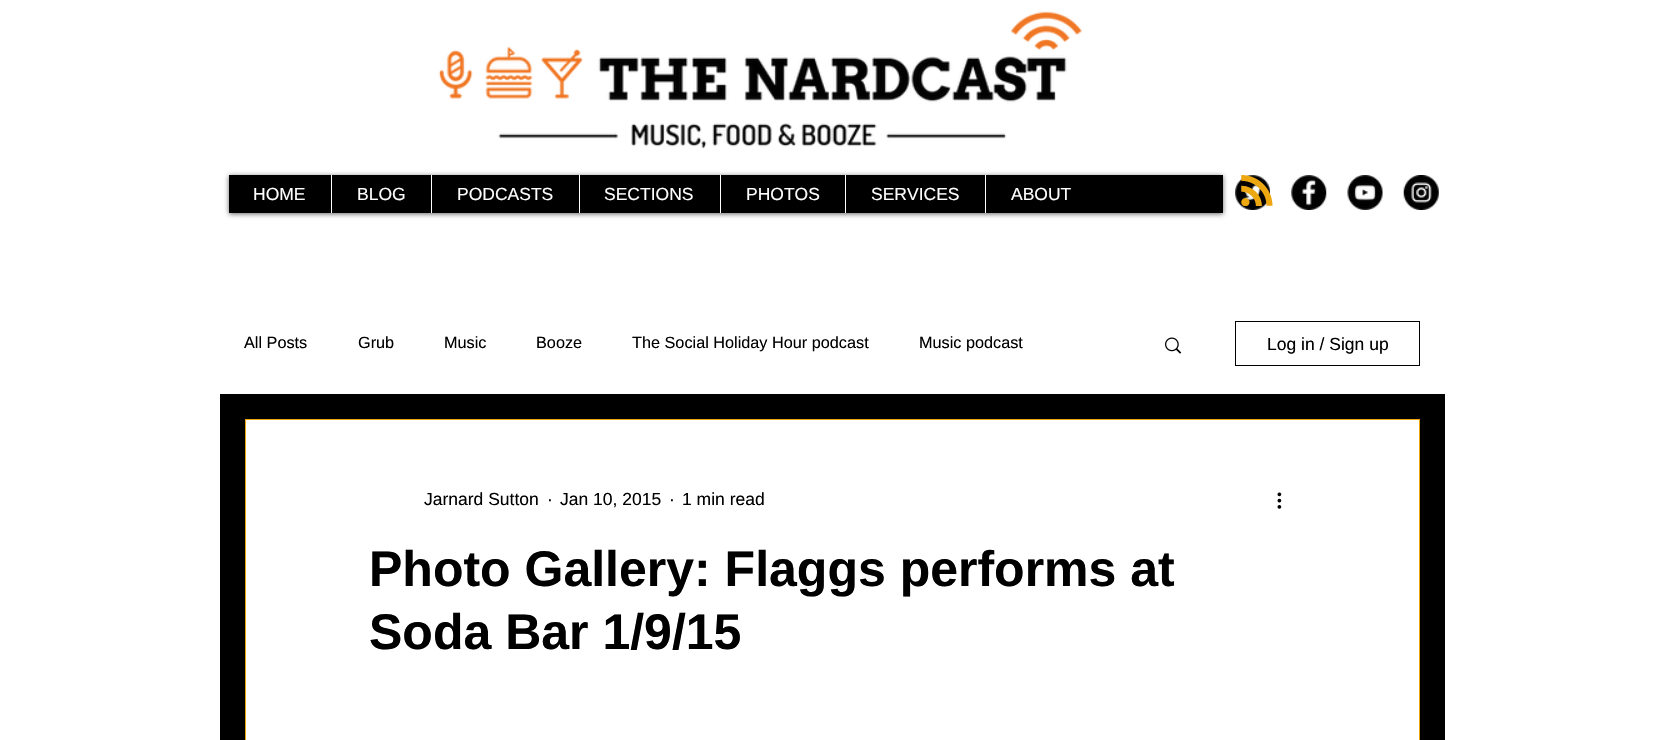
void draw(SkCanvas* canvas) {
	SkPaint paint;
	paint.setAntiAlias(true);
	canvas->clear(0xffffffff);
	canvas->drawImageRect(SkImages::DeferredFromEncodedData(SkData::MakeFromFileName("img1.png")), SkRect::MakeXYWH(438, 11, 645, 138), SkSamplingOptions());
	canvas->drawImageRect(SkImages::DeferredFromEncodedData(SkData::MakeFromFileName("img2.png")), SkRect::MakeXYWH(1235, 175, 35, 35), SkSamplingOptions());
	canvas->drawImageRect(SkImages::DeferredFromEncodedData(SkData::MakeFromFileName("img3.png")), SkRect::MakeXYWH(1291, 175, 36, 35), SkSamplingOptions());
	canvas->drawImageRect(SkImages::DeferredFromEncodedData(SkData::MakeFromFileName("img4.png")), SkRect::MakeXYWH(1347, 175, 36, 35), SkSamplingOptions());
	canvas->drawImageRect(SkImages::DeferredFromEncodedData(SkData::MakeFromFileName("img5.png")), SkRect::MakeXYWH(1403, 175, 36, 35), SkSamplingOptions());
	paint.setColor(0x99000000);
	paint.setMaskFilter(SkMaskFilter::MakeBlur(kNormal_SkBlurStyle, 2.5));
	canvas->drawRect(SkRect::MakeXYWH(229, 176, 994, 38), paint);
	paint.setMaskFilter(nullptr);
	paint.setColor(0xff000000);
	canvas->drawRect(SkRect::MakeXYWH(229, 175, 994, 38), paint);
	SkFont f1(fontMgr->matchFamilyStyle("Liberation Sans", SkFontStyle::Normal()), 17.5);
	f1.setSubpixel(true);
	paint.setColor(0xffffffff);
	canvas->drawString("HOME", 253, 200, f1, paint);
	canvas->drawRect(SkRect::MakeXYWH(331, 175, 1, 38), paint);
	canvas->drawString("BLOG", 357, 200, f1, paint);
	canvas->drawRect(SkRect::MakeXYWH(431, 175, 1, 38), paint);
	canvas->drawString("PODCASTS", 457, 200, f1, paint);
	canvas->drawRect(SkRect::MakeXYWH(579, 175, 1, 38), paint);
	canvas->drawString("SECTIONS", 604, 200, f1, paint);
	canvas->drawRect(SkRect::MakeXYWH(720, 175, 1, 38), paint);
	canvas->drawString("PHOTOS", 746, 200, f1, paint);
	canvas->drawRect(SkRect::MakeXYWH(845, 175, 1, 38), paint);
	canvas->drawString("SERVICES", 871, 200, f1, paint);
	canvas->drawRect(SkRect::MakeXYWH(985, 175, 1, 38), paint);
	canvas->drawString("ABOUT", 1011, 200, f1, paint);
	canvas->drawImageRect(SkImages::DeferredFromEncodedData(SkData::MakeFromFileName("img6.png")), SkRect::MakeXYWH(1241, 175, 32, 31), SkSamplingOptions());
	paint.setColor(0xff000000);
	canvas->drawRect(SkRect::MakeXYWH(220, 394, 1225, 346), paint);
	SkFont f2(fontMgr->matchFamilyStyle("Liberation Sans", SkFontStyle::Normal()), 16.25);
	f2.setSubpixel(true);
	canvas->drawString("All Posts", 244, 348, f2, paint);
	canvas->drawString("Grub", 358, 348, f2, paint);
	canvas->drawString("Music", 444, 348, f2, paint);
	canvas->drawString("Booze", 536, 348, f2, paint);
	canvas->drawString("The Social Holiday Hour podcast", 632, 348, f2, paint);
	canvas->drawString("Music podcast", 919, 348, f2, paint);
	canvas->drawImageRect(SkImages::DeferredFromEncodedData(SkData::MakeFromFileName("img7.png")), SkRect::MakeXYWH(1165, 337, 17, 17), SkSamplingOptions());
	paint.setStroke(true);
	paint.setStrokeWidth(1);
	canvas->drawRect(SkRect::MakeXYWH(1235.5, 321.5, 184, 44), paint);
	paint.setStroke(false);
	canvas->drawString("Log in / Sign up", 1267, 350, f1, paint);
	paint.setColor(0xffffffff);
	canvas->drawRect(SkRect::MakeXYWH(245.5, 419.5, 1174, 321), paint);
	paint.setStroke(true);
	paint.setColor(0xffeca711);
	canvas->drawRect(SkRect::MakeXYWH(245.5, 419.5, 1174, 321), paint);
	paint.setStroke(false);
	paint.setColor(0xff000000);
	canvas->drawString("Jarnard Sutton", 424, 505, f1, paint);
	canvas->drawString("·", 547, 505, f1, paint);
	canvas->drawString("Jan 10, 2015", 560, 505, f1, paint);
	canvas->drawString("·", 669, 505, f1, paint);
	canvas->drawString("1 min read", 682, 505, f1, paint);
	canvas->drawImageRect(SkImages::DeferredFromEncodedData(SkData::MakeFromFileName("img8.png")), SkRect::MakeXYWH(1277, 492, 5, 17), SkSamplingOptions());
	SkFont f3(fontMgr->matchFamilyStyle("Liberation Sans", SkFontStyle::Bold()), 50);
	f3.setSubpixel(true);
	canvas->drawString("Photo Gallery: Flaggs performs at", 369, 586, f3, paint);
	canvas->drawString("Soda Bar 1/9/15", 369, 649, f3, paint);
}
